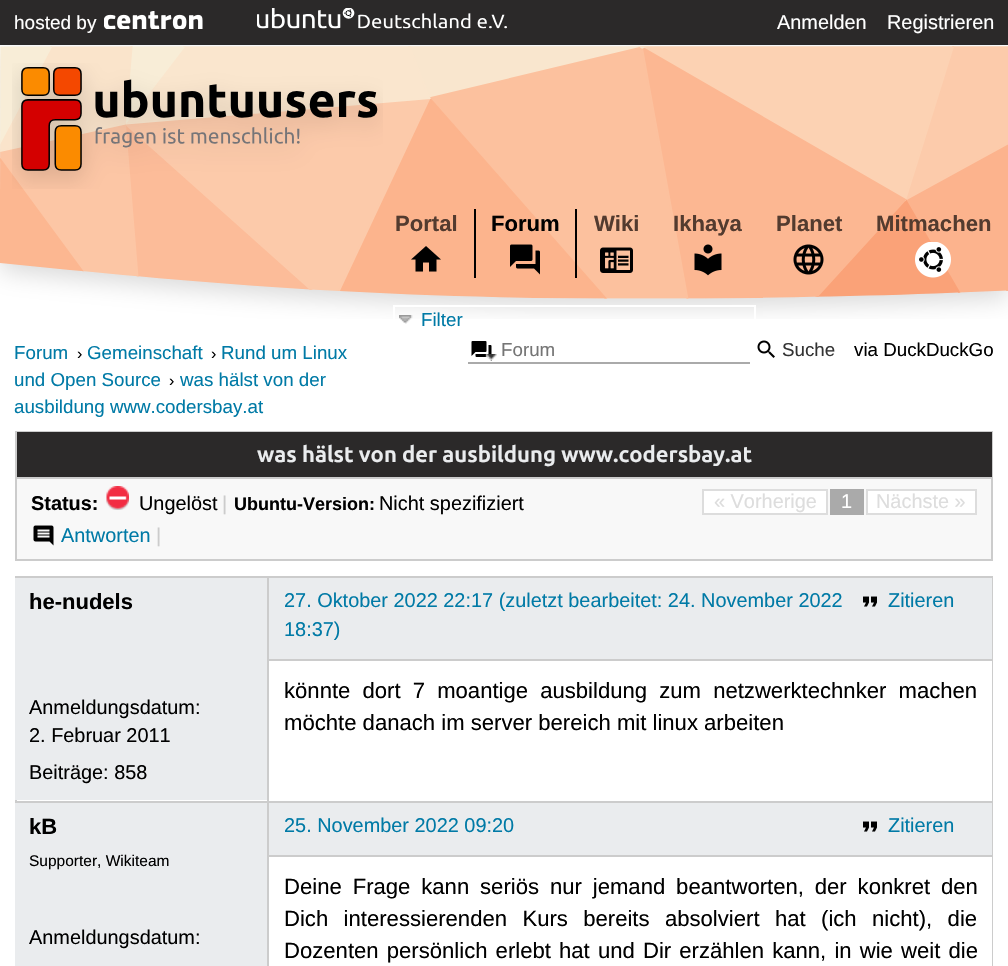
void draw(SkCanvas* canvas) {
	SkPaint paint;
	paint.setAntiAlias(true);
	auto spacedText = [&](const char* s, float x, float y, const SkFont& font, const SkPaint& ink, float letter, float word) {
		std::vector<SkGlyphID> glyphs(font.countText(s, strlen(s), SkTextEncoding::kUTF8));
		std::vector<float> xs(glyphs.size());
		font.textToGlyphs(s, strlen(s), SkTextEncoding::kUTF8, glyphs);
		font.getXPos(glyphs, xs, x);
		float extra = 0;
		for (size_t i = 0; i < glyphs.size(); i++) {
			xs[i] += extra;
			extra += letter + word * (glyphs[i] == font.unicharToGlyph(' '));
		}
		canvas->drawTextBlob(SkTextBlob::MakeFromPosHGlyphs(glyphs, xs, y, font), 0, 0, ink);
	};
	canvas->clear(0xffffffff);
	paint.setColor(0xff2b2929);
	canvas->drawRect(SkRect::MakeXYWH(0, 0, 1008, 45), paint);
	SkFont f1(fontMgr->matchFamilyStyle("Liberation Sans", SkFontStyle::Normal()), 19);
	f1.setSubpixel(true);
	paint.setColor(0xffffffff);
	canvas->drawString("hosted by", 14, 29, f1, paint);
	canvas->drawImageRect(SkImages::DeferredFromEncodedData(SkData::MakeFromFileName("img1.png")), SkRect::MakeXYWH(104, 11, 99, 18), SkSamplingOptions());
	canvas->drawImageRect(SkImages::DeferredFromEncodedData(SkData::MakeFromFileName("img2.png")), SkRect::MakeXYWH(257, 8, 250, 21), SkSamplingOptions());
	SkFont f2(fontMgr->matchFamilyStyle("Liberation Sans", SkFontStyle::Normal()), 19.9);
	f2.setSubpixel(true);
	canvas->drawString("Anmelden", 777, 29, f2, paint);
	canvas->drawString("Registrieren", 887, 29, f2, paint);
	canvas->drawImageRect(SkImages::DeferredFromEncodedData(SkData::MakeFromFileName("img3.png")), SkRect::MakeXYWH(0, 45, 1008, 274), SkSamplingOptions());
	canvas->drawImageRect(SkImages::DeferredFromEncodedData(SkData::MakeFromFileName("img4.png")), SkRect::MakeXYWH(12, 63, 371, 126), SkSamplingOptions());
	SkFont f3(fontMgr->matchFamilyStyle("Liberation Sans", SkFontStyle::Bold()), 22.1);
	f3.setSubpixel(true);
	paint.setColor(0xff533b2f);
	canvas->drawString("Portal", 395, 231, f3, paint);
	canvas->drawImageRect(SkImages::DeferredFromEncodedData(SkData::MakeFromFileName("img5.png")), SkRect::MakeXYWH(411, 246, 30, 26), SkSamplingOptions());
	paint.setColor(0xff000000);
	canvas->drawRect(SkRect::MakeXYWH(575, 209, 2, 69), paint);
	canvas->drawRect(SkRect::MakeXYWH(474, 209, 2, 69), paint);
	canvas->drawString("Forum", 491, 231, f3, paint);
	canvas->drawImageRect(SkImages::DeferredFromEncodedData(SkData::MakeFromFileName("img6.png")), SkRect::MakeXYWH(510, 244, 30, 31), SkSamplingOptions());
	paint.setColor(0xff533b2f);
	canvas->drawString("Wiki", 594, 231, f3, paint);
	canvas->drawImageRect(SkImages::DeferredFromEncodedData(SkData::MakeFromFileName("img7.png")), SkRect::MakeXYWH(600, 247, 33, 26), SkSamplingOptions());
	canvas->drawString("Ikhaya", 673, 231, f3, paint);
	canvas->drawImageRect(SkImages::DeferredFromEncodedData(SkData::MakeFromFileName("img8.png")), SkRect::MakeXYWH(694, 244, 28, 32), SkSamplingOptions());
	canvas->drawString("Planet", 776, 231, f3, paint);
	canvas->drawImageRect(SkImages::DeferredFromEncodedData(SkData::MakeFromFileName("img9.png")), SkRect::MakeXYWH(793, 244, 31, 31), SkSamplingOptions());
	canvas->drawString("Mitmachen", 876, 231, f3, paint);
	canvas->drawImageRect(SkImages::DeferredFromEncodedData(SkData::MakeFromFileName("img10.png")), SkRect::MakeXYWH(915, 242, 36, 36), SkSamplingOptions());
	paint.setStroke(true);
	paint.setStrokeWidth(2);
	paint.setColor(0xffffffff);
	canvas->drawRect(SkRect::MakeXYWH(394, 306, 361, 34), paint);
	canvas->drawImageRect(SkImages::DeferredFromEncodedData(SkData::MakeFromFileName("img11.png")), SkRect::MakeXYWH(399, 315, 14, 9), SkSamplingOptions());
	SkFont f4(fontMgr->matchFamilyStyle("Liberation Sans", SkFontStyle::Normal()), 18.75);
	f4.setSubpixel(true);
	paint.setStroke(false);
	paint.setColor(0xff007aa6);
	canvas->drawString("Filter", 421, 326, f4, paint);
	canvas->drawString("Forum", 14, 359, f4, paint);
	SkFont f5(fontMgr->matchFamilyStyle("Liberation Sans", SkFontStyle::Normal()), 16);
	f5.setSubpixel(true);
	paint.setColor(0xff000000);
	canvas->drawString("›", 77, 359, f5, paint);
	paint.setColor(0xff007aa6);
	canvas->drawString("Gemeinschaft", 87, 359, f4, paint);
	paint.setColor(0xff000000);
	canvas->drawString("›", 211, 359, f5, paint);
	paint.setColor(0xff007aa6);
	canvas->drawString("Rund um Linux", 221, 359, f4, paint);
	canvas->drawString("und Open Source", 14, 386, f4, paint);
	paint.setColor(0xff000000);
	canvas->drawString("›", 169, 386, f5, paint);
	paint.setColor(0xff007aa6);
	canvas->drawString("was hälst von der", 180, 386, f4, paint);
	canvas->drawString("ausbildung www.codersbay.at", 14, 413, f4, paint);
	canvas->drawImageRect(SkImages::DeferredFromEncodedData(SkData::MakeFromFileName("img13.png")), SkRect::MakeXYWH(471, 341, 21, 20), SkSamplingOptions());
	canvas->drawImageRect(SkImages::DeferredFromEncodedData(SkData::MakeFromFileName("img12.png")), SkRect::MakeXYWH(485, 354, 12, 6), SkSamplingOptions());
	paint.setColor(0xffaaaaaa);
	canvas->drawRect(SkRect::MakeXYWH(468, 362, 282, 2), paint);
	paint.setColor(0xff757575);
	canvas->drawString("Forum", 501, 356, f4, paint);
	canvas->drawImageRect(SkImages::DeferredFromEncodedData(SkData::MakeFromFileName("img14.png")), SkRect::MakeXYWH(757, 340, 18, 18), SkSamplingOptions());
	paint.setColor(0xff333333);
	canvas->drawString("Suche", 782, 356, f4, paint);
	paint.setColor(0xff000000);
	canvas->drawString("via DuckDuckGo", 854, 356, f4, paint);
	paint.setColor(0xfff8f8f8);
	canvas->drawRect(SkRect::MakeXYWH(17, 479, 974, 80), paint);
	paint.setStroke(true);
	paint.setColor(0xffcccccc);
	canvas->drawRect(SkRect::MakeXYWH(16, 432, 976, 128), paint);
	paint.setStroke(false);
	paint.setColor(0xff2b2929);
	canvas->drawRect(SkRect::MakeXYWH(17, 432, 975, 45), paint);
	paint.setColor(0xffcccccc);
	canvas->drawRect(SkRect::MakeXYWH(17, 477, 975, 2), paint);
	SkFont f6(fontMgr->matchFamilyStyle("Ubuntu", SkFontStyle::Bold()), 22.1);
	f6.setSubpixel(true);
	paint.setColor(0xffeaecee);
	canvas->drawString("was hälst von der ausbildung www.codersbay.at", 257, 462, f6, paint);
	SkFont f7(fontMgr->matchFamilyStyle("Liberation Sans", SkFontStyle::Bold()), 19.9);
	f7.setSubpixel(true);
	paint.setColor(0xff000000);
	canvas->drawString("Status:", 31, 510, f7, paint);
	canvas->drawImageRect(SkImages::DeferredFromEncodedData(SkData::MakeFromFileName("img15.png")), SkRect::MakeXYWH(106, 486, 23, 24), SkSamplingOptions());
	canvas->drawString("Ungelöst", 139, 510, f2, paint);
	paint.setColor(0xffcccccc);
	canvas->drawString("|", 222, 510, f2, paint);
	SkFont f8(fontMgr->matchFamilyStyle("Liberation Sans", SkFontStyle::Bold()), 18);
	f8.setSubpixel(true);
	paint.setColor(0xff000000);
	canvas->drawString("Ubuntu-Version:", 234, 510, f8, paint);
	canvas->drawString("Nicht spezifiziert", 379, 510, f2, paint);
	paint.setColor(0xffffffff);
	canvas->drawRect(SkRect::MakeXYWH(703, 490, 124, 24), paint);
	paint.setStroke(true);
	paint.setColor(0xffdddddd);
	canvas->drawRect(SkRect::MakeXYWH(703, 490, 124, 24), paint);
	paint.setStroke(false);
	canvas->drawString("« Vorherige", 714, 508, f2, paint);
	paint.setColor(0xffaaaaaa);
	canvas->drawRect(SkRect::MakeXYWH(830, 489, 34, 26), paint);
	paint.setColor(0xffffffff);
	canvas->drawString("1", 841, 508, f2, paint);
	canvas->drawRect(SkRect::MakeXYWH(867, 490, 109, 24), paint);
	paint.setStroke(true);
	paint.setColor(0xffdddddd);
	canvas->drawRect(SkRect::MakeXYWH(867, 490, 109, 24), paint);
	paint.setStroke(false);
	canvas->drawString("Nächste »", 876, 508, f2, paint);
	canvas->drawImageRect(SkImages::DeferredFromEncodedData(SkData::MakeFromFileName("img16.png")), SkRect::MakeXYWH(33, 525, 21, 21), SkSamplingOptions());
	paint.setColor(0xff007aa6);
	canvas->drawString("Antworten", 61, 542, f2, paint);
	paint.setColor(0xffcccccc);
	canvas->drawString("|", 156, 542, f2, paint);
	canvas->drawRect(SkRect::MakeXYWH(15, 576, 978, 2), paint);
	canvas->drawRect(SkRect::MakeXYWH(992, 576, 1, 390), paint);
	canvas->drawRect(SkRect::MakeXYWH(15, 576, 2, 225), paint);
	paint.setColor(0xffeaecee);
	canvas->drawRect(SkRect::MakeXYWH(15, 578, 252, 222), paint);
	SkFont f9(fontMgr->matchFamilyStyle("Liberation Sans", SkFontStyle::Bold()), 22);
	f9.setSubpixel(true);
	paint.setColor(0xff000000);
	canvas->drawString("he-nudels", 29, 609, f9, paint);
	canvas->drawString("Anmeldungsdatum:", 29, 714, f2, paint);
	canvas->drawString("2. Februar 2011", 29, 742, f2, paint);
	canvas->drawString("Beiträge: 858", 29, 779, f2, paint);
	paint.setColor(0xffeaecee);
	canvas->drawRect(SkRect::MakeXYWH(269, 578, 723, 81), paint);
	paint.setColor(0xffcccccc);
	canvas->drawRect(SkRect::MakeXYWH(269, 659, 723, 2), paint);
	paint.setColor(0xff007aa6);
	canvas->drawString("27. Oktober 2022 22:17 (zuletzt bearbeitet: 24. November 2022", 284, 607, f2, paint);
	canvas->drawImageRect(SkImages::DeferredFromEncodedData(SkData::MakeFromFileName("img17.png")), SkRect::MakeXYWH(863, 596, 14, 11), SkSamplingOptions());
	canvas->drawString("Zitieren", 888, 607, f2, paint);
	canvas->drawString("18:37)", 284, 636, f2, paint);
	SkFont f10(fontMgr->matchFamilyStyle("Liberation Sans", SkFontStyle::Normal()), 22.1);
	f10.setSubpixel(true);
	paint.setColor(0xff000000);
	spacedText("könnte dort 7 moantige ausbildung zum netzwerktechnker machen", 284, 698, f10, paint, 0, 6);
	canvas->drawString("möchte danach im server bereich mit linux arbeiten", 284, 730, f10, paint);
	paint.setColor(0xffcccccc);
	canvas->drawRect(SkRect::MakeXYWH(15, 801, 978, 2), paint);
	canvas->drawRect(SkRect::MakeXYWH(267, 576, 2, 390), paint);
	paint.setColor(0xffeaecee);
	canvas->drawRect(SkRect::MakeXYWH(15, 803, 252, 163), paint);
	paint.setColor(0xff000000);
	canvas->drawString("kB", 29, 834, f9, paint);
	SkFont f11(fontMgr->matchFamilyStyle("Liberation Sans", SkFontStyle::Normal()), 15.5);
	f11.setSubpixel(true);
	canvas->drawString("Supporter, Wikiteam", 29, 866, f11, paint);
	canvas->drawString("Anmeldungsdatum:", 29, 944, f2, paint);
	paint.setColor(0xffeaecee);
	canvas->drawRect(SkRect::MakeXYWH(269, 803, 723, 52), paint);
	paint.setColor(0xffcccccc);
	canvas->drawRect(SkRect::MakeXYWH(269, 855, 723, 2), paint);
	paint.setColor(0xff007aa6);
	canvas->drawString("25. November 2022 09:20", 284, 832, f2, paint);
	canvas->drawImageRect(SkImages::DeferredFromEncodedData(SkData::MakeFromFileName("img17.png")), SkRect::MakeXYWH(863, 821, 14, 11), SkSamplingOptions());
	canvas->drawString("Zitieren", 888, 832, f2, paint);
	paint.setColor(0xff000000);
	spacedText("Deine Frage kann seriös nur jemand beantworten, der konkret den", 284, 894, f10, paint, 0, 4.75);
	spacedText("Dich interessierenden Kurs bereits absolviert hat (ich nicht), die", 284, 926, f10, paint, 0, 9.25);
	spacedText("Dozenten persönlich erlebt hat und Dir erzählen kann, in wie weit die", 284, 958, f10, paint, 0, 2);
}
